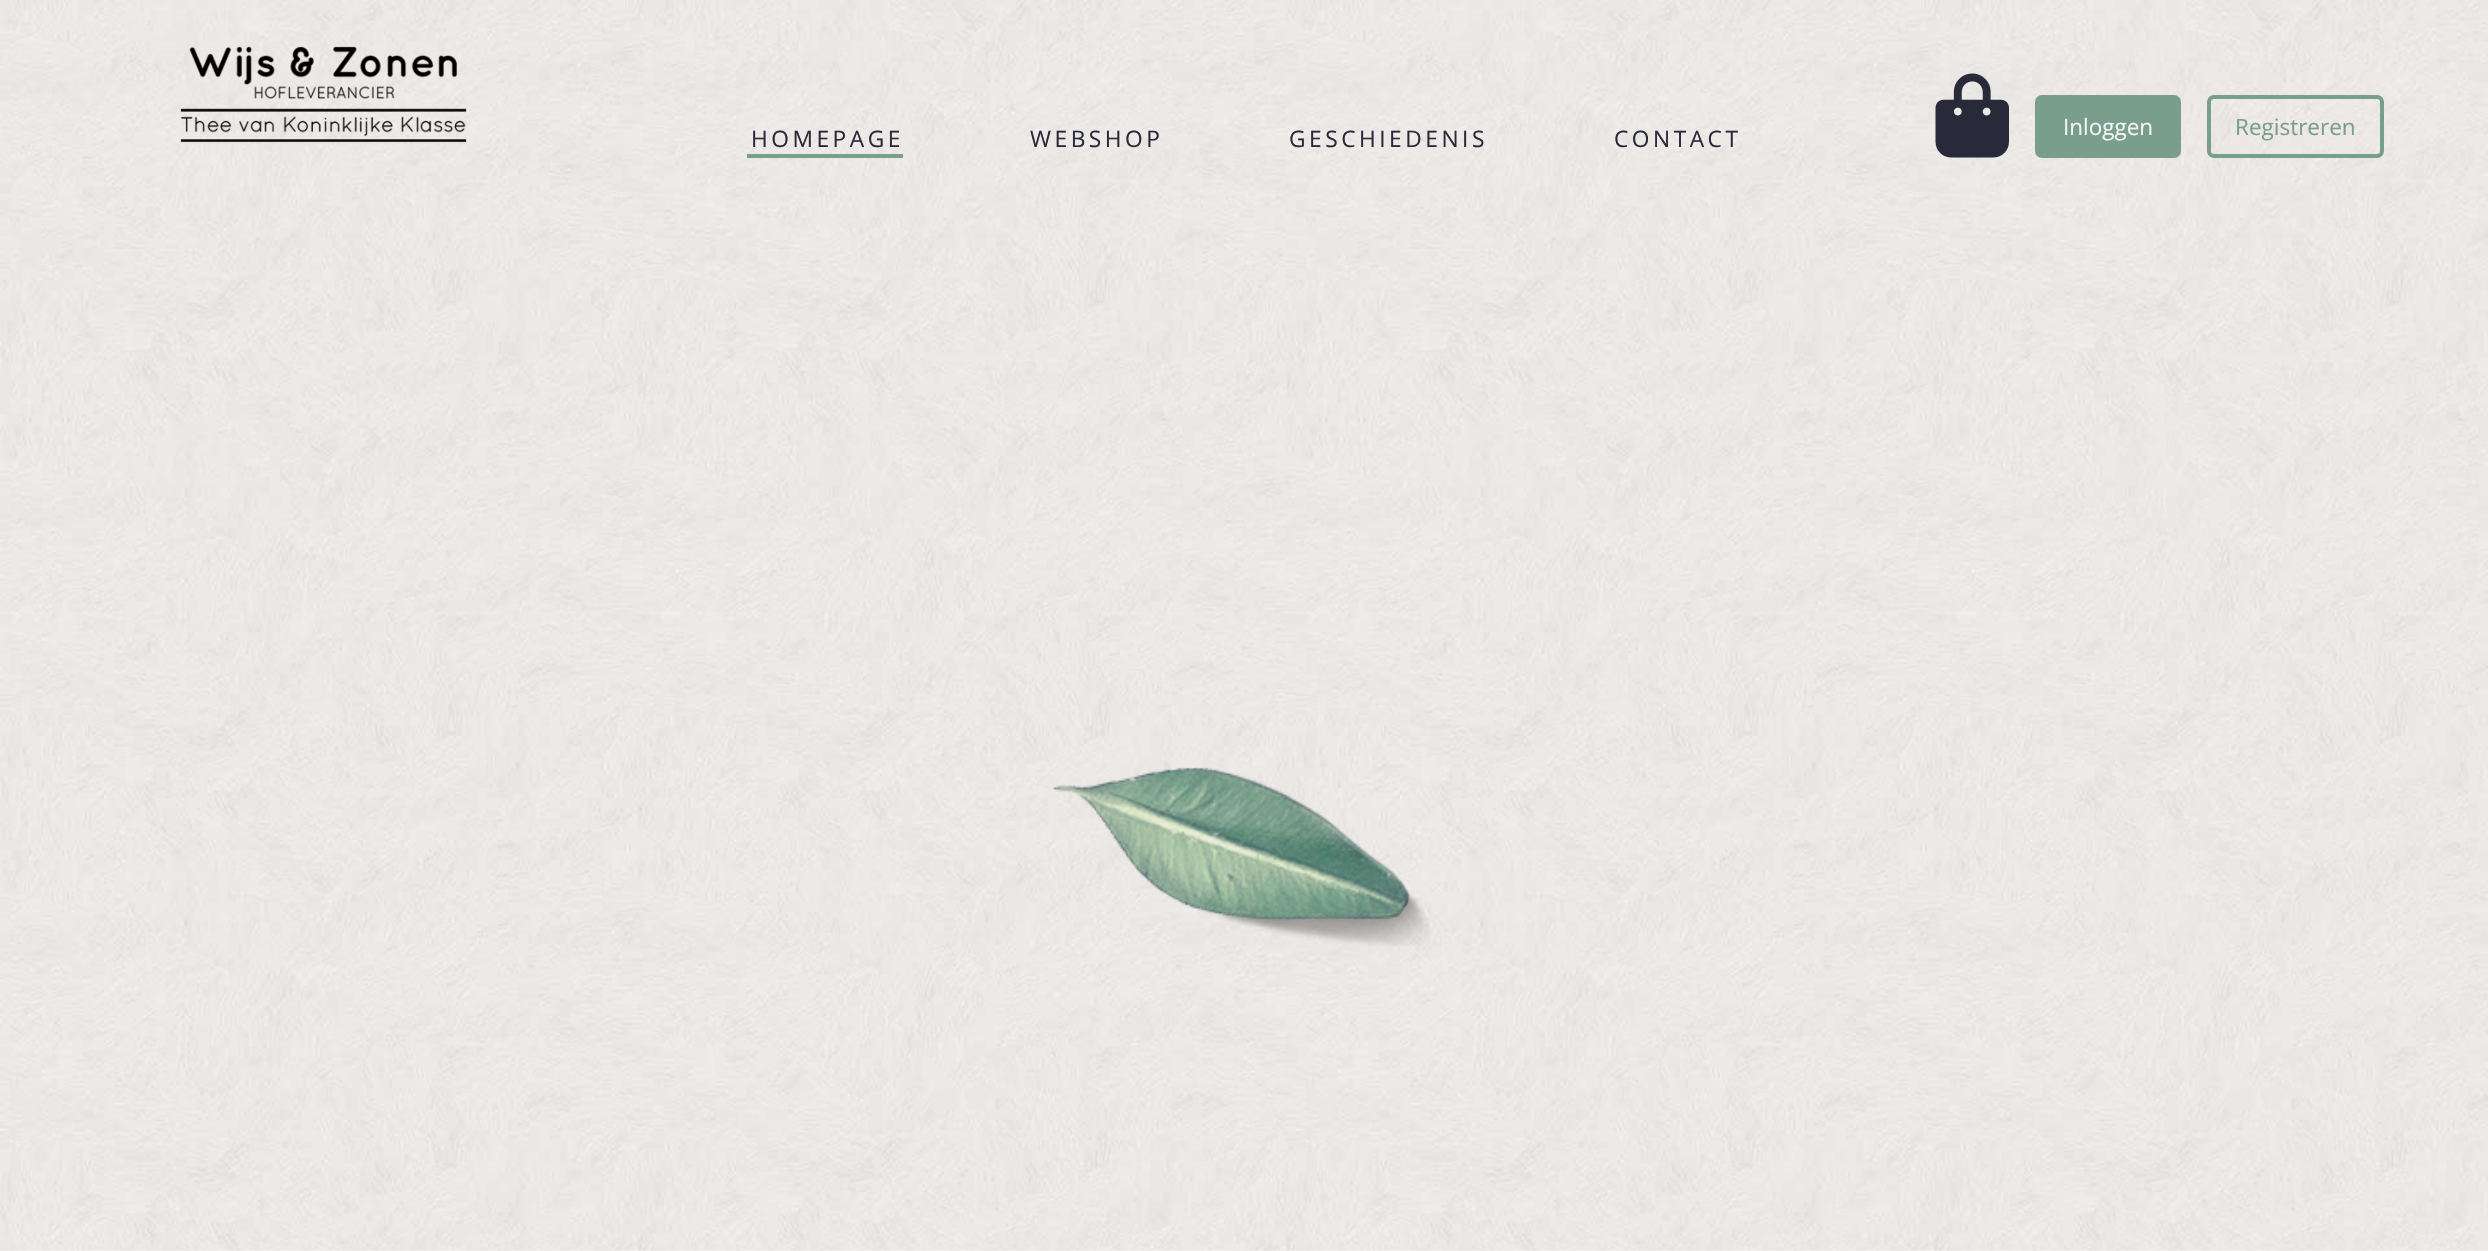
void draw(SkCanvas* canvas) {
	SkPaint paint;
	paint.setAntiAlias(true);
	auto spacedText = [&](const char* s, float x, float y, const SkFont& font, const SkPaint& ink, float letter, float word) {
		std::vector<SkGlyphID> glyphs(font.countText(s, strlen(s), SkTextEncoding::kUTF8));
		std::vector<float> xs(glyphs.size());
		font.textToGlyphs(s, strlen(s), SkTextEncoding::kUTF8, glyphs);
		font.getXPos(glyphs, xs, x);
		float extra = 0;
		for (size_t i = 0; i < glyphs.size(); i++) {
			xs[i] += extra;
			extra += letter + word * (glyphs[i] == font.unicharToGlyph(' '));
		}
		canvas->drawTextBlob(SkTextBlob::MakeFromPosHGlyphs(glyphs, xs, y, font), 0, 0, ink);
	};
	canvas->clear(0xffffffff);
	canvas->drawImageRect(SkImages::DeferredFromEncodedData(SkData::MakeFromFileName("img1.png")), SkRect::MakeXYWH(0, 0, 2488, 1251), SkSamplingOptions());
	canvas->drawImageRect(SkImages::DeferredFromEncodedData(SkData::MakeFromFileName("img2.png")), SkRect::MakeXYWH(180, 46, 287, 97), SkSamplingOptions());
	paint.setColor(0xff799e8b);
	canvas->drawRect(SkRect::MakeXYWH(747, 154, 156, 4), paint);
	SkFont f1(fontMgr->matchFamilyStyle("Open Sans", SkFontStyle::Normal()), 22.75);
	f1.setSubpixel(true);
	paint.setColor(0xff282a3a);
	spacedText("HOMEPAGE", 751, 147, f1, paint, 3.5, 0);
	spacedText("WEBSHOP", 1030, 147, f1, paint, 3.5, 0);
	spacedText("GESCHIEDENIS", 1289, 147, f1, paint, 3.5, 0);
	spacedText("CONTACT", 1614, 147, f1, paint, 3.5, 0);
	canvas->drawImageRect(SkImages::DeferredFromEncodedData(SkData::MakeFromFileName("img3.png")), SkRect::MakeXYWH(1935, 73, 74, 85), SkSamplingOptions());
	paint.setColor(0xff799e8b);
	canvas->drawRoundRect(SkRect::MakeXYWH(2037, 97, 142, 59), 5, 5, paint);
	paint.setStroke(true);
	paint.setStrokeWidth(4);
	canvas->drawRoundRect(SkRect::MakeXYWH(2037, 97, 142, 59), 5, 5, paint);
	SkFont f2(fontMgr->matchFamilyStyle("Open Sans", SkFontStyle::Normal()), 22.5);
	f2.setSubpixel(true);
	paint.setStroke(false);
	paint.setColor(0xfff3f4f8);
	canvas->drawString("Inloggen", 2063, 135, f2, paint);
	paint.setStroke(true);
	paint.setColor(0xff799e8b);
	canvas->drawRoundRect(SkRect::MakeXYWH(2209, 97, 173, 59), 5, 5, paint);
	paint.setStroke(false);
	canvas->drawString("Registreren", 2235, 135, f2, paint);
	canvas->drawImageRect(SkImages::DeferredFromEncodedData(SkData::MakeFromFileName("img4.png")), SkRect::MakeXYWH(1052, 767, 378, 179), SkSamplingOptions());
}
